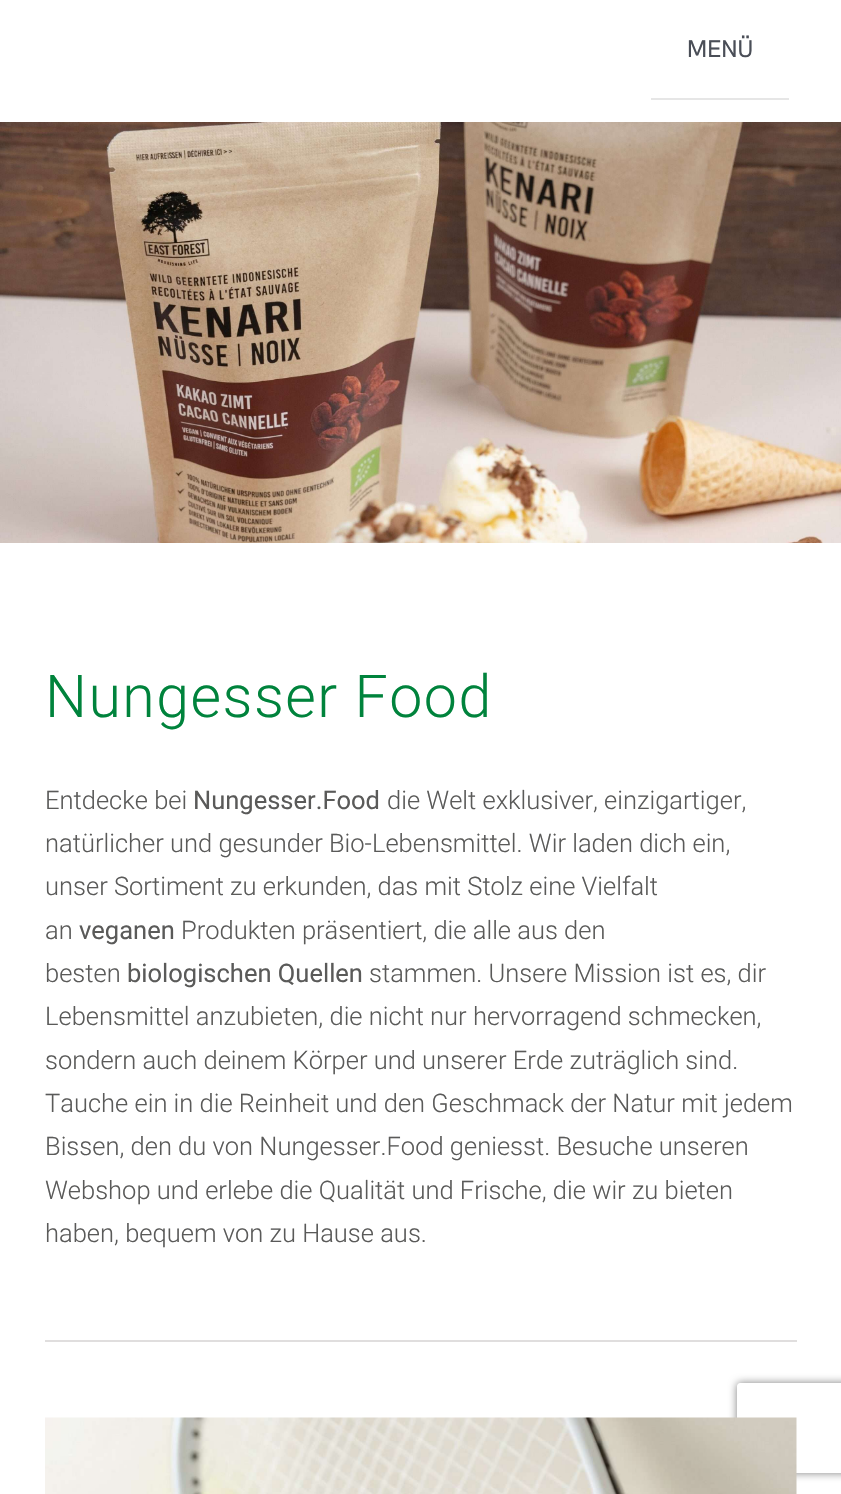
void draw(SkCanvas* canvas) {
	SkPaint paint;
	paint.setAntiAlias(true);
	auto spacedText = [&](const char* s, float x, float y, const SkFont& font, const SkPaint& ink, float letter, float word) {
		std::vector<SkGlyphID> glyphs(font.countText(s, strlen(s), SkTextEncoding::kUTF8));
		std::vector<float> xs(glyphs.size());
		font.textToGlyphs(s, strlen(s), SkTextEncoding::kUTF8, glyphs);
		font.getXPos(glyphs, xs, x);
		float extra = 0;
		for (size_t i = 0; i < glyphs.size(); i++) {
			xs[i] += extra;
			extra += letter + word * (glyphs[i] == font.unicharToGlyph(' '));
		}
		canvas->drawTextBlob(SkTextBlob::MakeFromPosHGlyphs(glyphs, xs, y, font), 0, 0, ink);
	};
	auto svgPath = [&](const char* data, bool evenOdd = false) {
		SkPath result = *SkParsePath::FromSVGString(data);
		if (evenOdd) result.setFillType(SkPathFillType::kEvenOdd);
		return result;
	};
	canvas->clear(0xffffffff);
	paint.setColor(0xffe6e6e6);
	canvas->drawRect(SkRect::MakeXYWH(651, 98, 138, 2), paint);
	SkFont f1(fontMgr->matchFamilyStyle("Hanken Grotesk", SkFontStyle::Normal()), 24);
	f1.setSubpixel(true);
	paint.setColor(0xff4a4e57);
	canvas->drawString("MENÜ", 687, 57, f1, paint);
	canvas->drawImageRect(SkImages::DeferredFromEncodedData(SkData::MakeFromFileName("img1.png")), SkRect::MakeXYWH(0, 122, 841, 421), SkSamplingOptions());
	SkFont f2(fontMgr->matchFamilyStyle("Roboto", SkFontStyle(300, SkFontStyle::kNormal_Width, SkFontStyle::kUpright_Slant)), 59);
	f2.setSubpixel(true);
	paint.setColor(0xff00833c);
	spacedText("Nungesser Food", 45, 717, f2, paint, 1.5, 0);
	SkFont f3(fontMgr->matchFamilyStyle("Roboto", SkFontStyle(300, SkFontStyle::kNormal_Width, SkFontStyle::kUpright_Slant)), 25.5);
	f3.setSubpixel(true);
	paint.setColor(0xff5a5a59);
	canvas->drawString("Entdecke bei", 45, 809, f3, paint);
	SkFont f4(fontMgr->matchFamilyStyle("Roboto", SkFontStyle::Normal()), 25.5);
	f4.setSubpixel(true);
	canvas->drawString("Nungesser.Food", 193, 809, f4, paint);
	canvas->drawString("die Welt exklusiver, einzigartiger,", 387, 809, f3, paint);
	canvas->drawString("natürlicher und gesunder Bio-Lebensmittel. Wir laden dich ein,", 45, 852, f3, paint);
	canvas->drawString("unser Sortiment zu erkunden, das mit Stolz eine Vielfalt", 45, 895, f3, paint);
	canvas->drawString("an", 45, 939, f3, paint);
	canvas->drawString("veganen", 79, 939, f4, paint);
	canvas->drawString("Produkten präsentiert, die alle aus den", 181, 939, f3, paint);
	canvas->drawString("besten", 45, 982, f3, paint);
	canvas->drawString("biologischen Quellen", 127, 982, f4, paint);
	canvas->drawString("stammen. Unsere Mission ist es, dir", 369, 982, f3, paint);
	canvas->drawString("Lebensmittel anzubieten, die nicht nur hervorragend schmecken,", 45, 1025, f3, paint);
	canvas->drawString("sondern auch deinem Körper und unserer Erde zuträglich sind.", 45, 1069, f3, paint);
	canvas->drawString("Tauche ein in die Reinheit und den Geschmack der Natur mit jedem", 45, 1112, f3, paint);
	canvas->drawString("Bissen, den du von Nungesser.Food geniesst. Besuche unseren", 45, 1155, f3, paint);
	canvas->drawString("Webshop und erlebe die Qualität und Frische, die wir zu bieten", 45, 1199, f3, paint);
	canvas->drawString("haben, bequem von zu Hause aus.", 45, 1242, f3, paint);
	paint.setColor(0xffe0dede);
	canvas->drawRect(SkRect::MakeXYWH(45, 1340, 752, 2), paint);
	canvas->save();
	canvas->clipPath(svgPath("M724 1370H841V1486H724ZM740 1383H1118C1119.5 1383 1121 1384.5 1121 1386V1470C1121 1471.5 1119.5 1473 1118 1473H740C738.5 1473 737 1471.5 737 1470V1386C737 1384.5 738.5 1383 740 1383Z", true), true);
	paint.setColor(0xff808080);
	paint.setMaskFilter(SkMaskFilter::MakeBlur(kNormal_SkBlurStyle, 4));
	canvas->drawRoundRect(SkRect::MakeXYWH(737, 1383, 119, 90), 3, 3, paint);
	paint.setMaskFilter(nullptr);
	canvas->restore();
	canvas->drawImageRect(SkImages::DeferredFromEncodedData(SkData::MakeFromFileName("img2.png")), SkRect::MakeXYWH(45, 1417, 752, 77), SkSamplingOptions());
}
